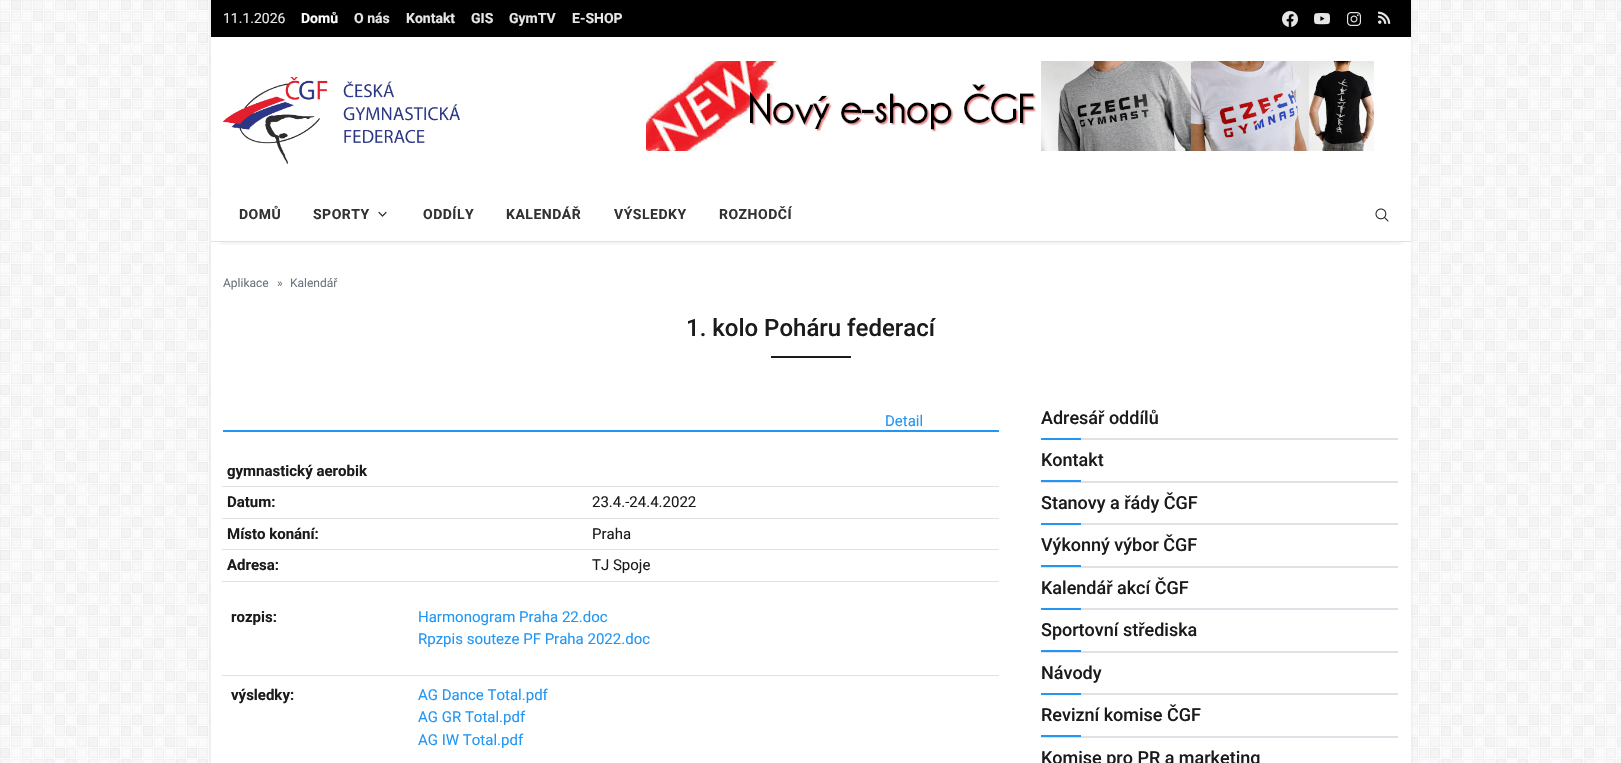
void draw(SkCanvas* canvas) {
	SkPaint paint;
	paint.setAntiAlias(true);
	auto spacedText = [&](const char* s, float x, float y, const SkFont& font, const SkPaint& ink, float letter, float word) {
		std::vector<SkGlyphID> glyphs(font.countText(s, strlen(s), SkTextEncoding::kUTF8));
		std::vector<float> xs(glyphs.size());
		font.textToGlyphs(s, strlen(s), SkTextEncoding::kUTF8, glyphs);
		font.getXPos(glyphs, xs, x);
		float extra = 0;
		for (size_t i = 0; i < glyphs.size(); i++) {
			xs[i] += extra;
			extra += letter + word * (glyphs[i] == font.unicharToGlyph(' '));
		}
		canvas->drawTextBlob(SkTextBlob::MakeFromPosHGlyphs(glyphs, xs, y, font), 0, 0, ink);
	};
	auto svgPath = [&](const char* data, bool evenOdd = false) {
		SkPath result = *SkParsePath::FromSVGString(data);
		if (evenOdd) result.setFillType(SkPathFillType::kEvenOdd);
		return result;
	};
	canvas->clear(0xffffffff);
	canvas->drawImageRect(SkImages::DeferredFromEncodedData(SkData::MakeFromFileName("img1.png")), SkRect::MakeXYWH(0, 0, 1621, 763), SkSamplingOptions());
	paint.setColor(0xffdee2e6);
	paint.setMaskFilter(SkMaskFilter::MakeBlur(kNormal_SkBlurStyle, 1.5));
	canvas->drawRect(SkRect::MakeXYWH(211, 0, 1200, 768), paint);
	paint.setMaskFilter(nullptr);
	paint.setColor(0xffffffff);
	canvas->drawRect(SkRect::MakeXYWH(211, 37, 1200, 726), paint);
	paint.setColor(0xff000000);
	canvas->drawRect(SkRect::MakeXYWH(211, 0, 1200, 37), paint);
	SkFont f1(fontMgr->matchFamilyStyle("Roboto", SkFontStyle::Normal()), 14);
	f1.setSubpixel(true);
	paint.setColor(0xffe6e6e6);
	canvas->drawString("11.1.2026", 223, 23, f1, paint);
	SkFont f2(fontMgr->matchFamilyStyle("Roboto", SkFontStyle::Bold()), 14);
	f2.setSubpixel(true);
	paint.setColor(0xffffffff);
	canvas->drawString("Domů", 301, 23, f2, paint);
	paint.setColor(0xffe6e6e6);
	canvas->drawString("O nás", 354, 23, f2, paint);
	canvas->drawString("Kontakt", 406, 23, f2, paint);
	canvas->drawString("GIS", 471, 23, f2, paint);
	canvas->drawString("GymTV", 509, 23, f2, paint);
	canvas->drawString("E-SHOP", 572, 23, f2, paint);
	canvas->drawImageRect(SkImages::DeferredFromEncodedData(SkData::MakeFromFileName("img2.png")), SkRect::MakeXYWH(1282, 11, 16, 16), SkSamplingOptions());
	canvas->drawImageRect(SkImages::DeferredFromEncodedData(SkData::MakeFromFileName("img3.png")), SkRect::MakeXYWH(1314, 13, 16, 12), SkSamplingOptions());
	canvas->drawImageRect(SkImages::DeferredFromEncodedData(SkData::MakeFromFileName("img4.png")), SkRect::MakeXYWH(1347, 12, 14, 14), SkSamplingOptions());
	canvas->drawImageRect(SkImages::DeferredFromEncodedData(SkData::MakeFromFileName("img5.png")), SkRect::MakeXYWH(1378, 11, 13, 13), SkSamplingOptions());
	canvas->drawImageRect(SkImages::DeferredFromEncodedData(SkData::MakeFromFileName("img6.png")), SkRect::MakeXYWH(223, 77, 237, 87), SkSamplingOptions());
	canvas->drawImageRect(SkImages::DeferredFromEncodedData(SkData::MakeFromFileName("img7.png")), SkRect::MakeXYWH(646, 61, 728, 90), SkSamplingOptions());
	canvas->save();
	canvas->clipRect(SkRect::MakeXYWH(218, 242, 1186, 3));
	paint.setColor(0x1a000000);
	paint.setMaskFilter(SkMaskFilter::MakeBlur(kNormal_SkBlurStyle, 4));
	canvas->drawRect(SkRect::MakeXYWH(219, 204, 1184, 38), paint);
	paint.setMaskFilter(nullptr);
	canvas->restore();
	paint.setColor(0xffdee2e6);
	canvas->drawRect(SkRect::MakeXYWH(211, 241, 1200, 1), paint);
	paint.setColor(0xff323232);
	spacedText("DOMŮ", 239, 219, f2, paint, 0.5, 0);
	spacedText("SPORTY", 313, 219, f2, paint, 0.5, 0);
	paint.setStroke(true);
	paint.setStrokeWidth(1.2);
	paint.setStrokeCap(SkPaint::kRound_Cap);
	paint.setStrokeJoin(SkPaint::kRound_Join);
	canvas->drawPath(svgPath("M379 212.5L382.5 216L386 212.5"), paint);
	paint.setStroke(false);
	spacedText("ODDÍLY", 423, 219, f2, paint, 0.5, 0);
	spacedText("KALENDÁŘ", 506, 219, f2, paint, 0.5, 0);
	spacedText("VÝSLEDKY", 614, 219, f2, paint, 0.5, 0);
	spacedText("ROZHODČÍ", 719, 219, f2, paint, 0.5, 0);
	canvas->drawImageRect(SkImages::DeferredFromEncodedData(SkData::MakeFromFileName("img8.png")), SkRect::MakeXYWH(1375, 208, 14, 14), SkSamplingOptions());
	SkFont f3(fontMgr->matchFamilyStyle("Roboto", SkFontStyle::Normal()), 12);
	f3.setSubpixel(true);
	paint.setColor(0xff6c757d);
	canvas->drawString("Aplikace", 223, 287, f3, paint);
	canvas->drawString("»", 277, 287, f3, paint);
	canvas->drawString("Kalendář", 290, 287, f3, paint);
	SkFont f4(fontMgr->matchFamilyStyle("Roboto", SkFontStyle(500, SkFontStyle::kNormal_Width, SkFontStyle::kUpright_Slant)), 24);
	f4.setSubpixel(true);
	paint.setColor(0xff1b1b1b);
	canvas->drawString("1. kolo Poháru federací", 686, 336, f4, paint);
	canvas->drawRect(SkRect::MakeXYWH(771, 356, 80, 2), paint);
	SkFont f5(fontMgr->matchFamilyStyle("Roboto", SkFontStyle::Normal()), 15);
	f5.setSubpixel(true);
	paint.setColor(0xff2196f4);
	canvas->drawString("Detail", 885, 426, f5, paint);
	canvas->drawRect(SkRect::MakeXYWH(223, 430, 776, 2), paint);
	paint.setColor(0xffdee2e6);
	canvas->drawRect(SkRect::MakeXYWH(222, 486, 777, 1), paint);
	SkFont f6(fontMgr->matchFamilyStyle("Roboto", SkFontStyle::Bold()), 15);
	f6.setSubpixel(true);
	paint.setColor(0xff1b1b1b);
	canvas->drawString("gymnastický aerobik", 227, 476, f6, paint);
	canvas->drawString("Datum:", 227, 507, f6, paint);
	paint.setColor(0xffdee2e6);
	canvas->drawRect(SkRect::MakeXYWH(222, 518, 777, 1), paint);
	paint.setColor(0xff1b1b1b);
	canvas->drawString("23.4.-24.4.2022", 592, 507, f5, paint);
	canvas->drawString("Místo konání:", 227, 539, f6, paint);
	paint.setColor(0xffdee2e6);
	canvas->drawRect(SkRect::MakeXYWH(222, 549, 777, 1), paint);
	paint.setColor(0xff1b1b1b);
	canvas->drawString("Praha", 592, 539, f5, paint);
	canvas->drawString("Adresa:", 227, 570, f6, paint);
	paint.setColor(0xffdee2e6);
	canvas->drawRect(SkRect::MakeXYWH(222, 581, 777, 1), paint);
	paint.setColor(0xff1b1b1b);
	canvas->drawString("TJ Spoje", 592, 570, f5, paint);
	canvas->drawString("rozpis:", 231, 622, f6, paint);
	paint.setColor(0xffdee2e6);
	canvas->drawRect(SkRect::MakeXYWH(222, 675, 777, 1), paint);
	paint.setColor(0xff2196f4);
	canvas->drawString("Harmonogram Praha 22.doc", 418, 622, f5, paint);
	canvas->drawString("Rpzpis souteze PF Praha 2022.doc", 418, 644, f5, paint);
	paint.setColor(0xff1b1b1b);
	canvas->drawString("výsledky:", 231, 700, f6, paint);
	paint.setColor(0xff2196f4);
	canvas->drawString("AG Dance Total.pdf", 418, 700, f5, paint);
	canvas->drawString("AG GR Total.pdf", 418, 722, f5, paint);
	canvas->drawString("AG IW Total.pdf", 418, 745, f5, paint);
	paint.setColor(0xffdee2e6);
	canvas->drawRect(SkRect::MakeXYWH(1081, 438, 317, 2), paint);
	SkFont f7(fontMgr->matchFamilyStyle("Roboto", SkFontStyle(500, SkFontStyle::kNormal_Width, SkFontStyle::kUpright_Slant)), 18);
	f7.setSubpixel(true);
	paint.setColor(0xff1b1b1b);
	canvas->drawString("Adresář oddílů", 1041, 424, f7, paint);
	paint.setColor(0xff2196f4);
	canvas->drawRect(SkRect::MakeXYWH(1041, 438, 40, 2), paint);
	paint.setColor(0xffdee2e6);
	canvas->drawRect(SkRect::MakeXYWH(1041, 481, 357, 2), paint);
	paint.setColor(0xff1b1b1b);
	canvas->drawString("Kontakt", 1041, 466, f7, paint);
	paint.setColor(0xff2196f4);
	canvas->drawRect(SkRect::MakeXYWH(1041, 480, 40, 2), paint);
	paint.setColor(0xffdee2e6);
	canvas->drawRect(SkRect::MakeXYWH(1081, 523, 317, 2), paint);
	paint.setColor(0xff1b1b1b);
	canvas->drawString("Stanovy a řády ČGF", 1041, 509, f7, paint);
	paint.setColor(0xff2196f4);
	canvas->drawRect(SkRect::MakeXYWH(1041, 523, 40, 2), paint);
	paint.setColor(0xffdee2e6);
	canvas->drawRect(SkRect::MakeXYWH(1041, 566, 357, 2), paint);
	paint.setColor(0xff1b1b1b);
	canvas->drawString("Výkonný výbor ČGF", 1041, 551, f7, paint);
	paint.setColor(0xff2196f4);
	canvas->drawRect(SkRect::MakeXYWH(1041, 565, 40, 2), paint);
	paint.setColor(0xffdee2e6);
	canvas->drawRect(SkRect::MakeXYWH(1081, 608, 317, 2), paint);
	paint.setColor(0xff1b1b1b);
	canvas->drawString("Kalendář akcí ČGF", 1041, 594, f7, paint);
	paint.setColor(0xff2196f4);
	canvas->drawRect(SkRect::MakeXYWH(1041, 608, 40, 2), paint);
	paint.setColor(0xffdee2e6);
	canvas->drawRect(SkRect::MakeXYWH(1041, 651, 357, 2), paint);
	paint.setColor(0xff1b1b1b);
	canvas->drawString("Sportovní střediska", 1041, 636, f7, paint);
	paint.setColor(0xff2196f4);
	canvas->drawRect(SkRect::MakeXYWH(1041, 650, 40, 2), paint);
	paint.setColor(0xffdee2e6);
	canvas->drawRect(SkRect::MakeXYWH(1081, 693, 317, 2), paint);
	paint.setColor(0xff1b1b1b);
	canvas->drawString("Návody", 1041, 679, f7, paint);
	paint.setColor(0xff2196f4);
	canvas->drawRect(SkRect::MakeXYWH(1041, 693, 40, 2), paint);
	paint.setColor(0xffdee2e6);
	canvas->drawRect(SkRect::MakeXYWH(1041, 736, 357, 2), paint);
	paint.setColor(0xff1b1b1b);
	canvas->drawString("Revizní komise ČGF", 1041, 721, f7, paint);
	paint.setColor(0xff2196f4);
	canvas->drawRect(SkRect::MakeXYWH(1041, 735, 40, 2), paint);
	paint.setColor(0xff1b1b1b);
	canvas->drawString("Komise pro PR a marketing", 1041, 764, f7, paint);
}
